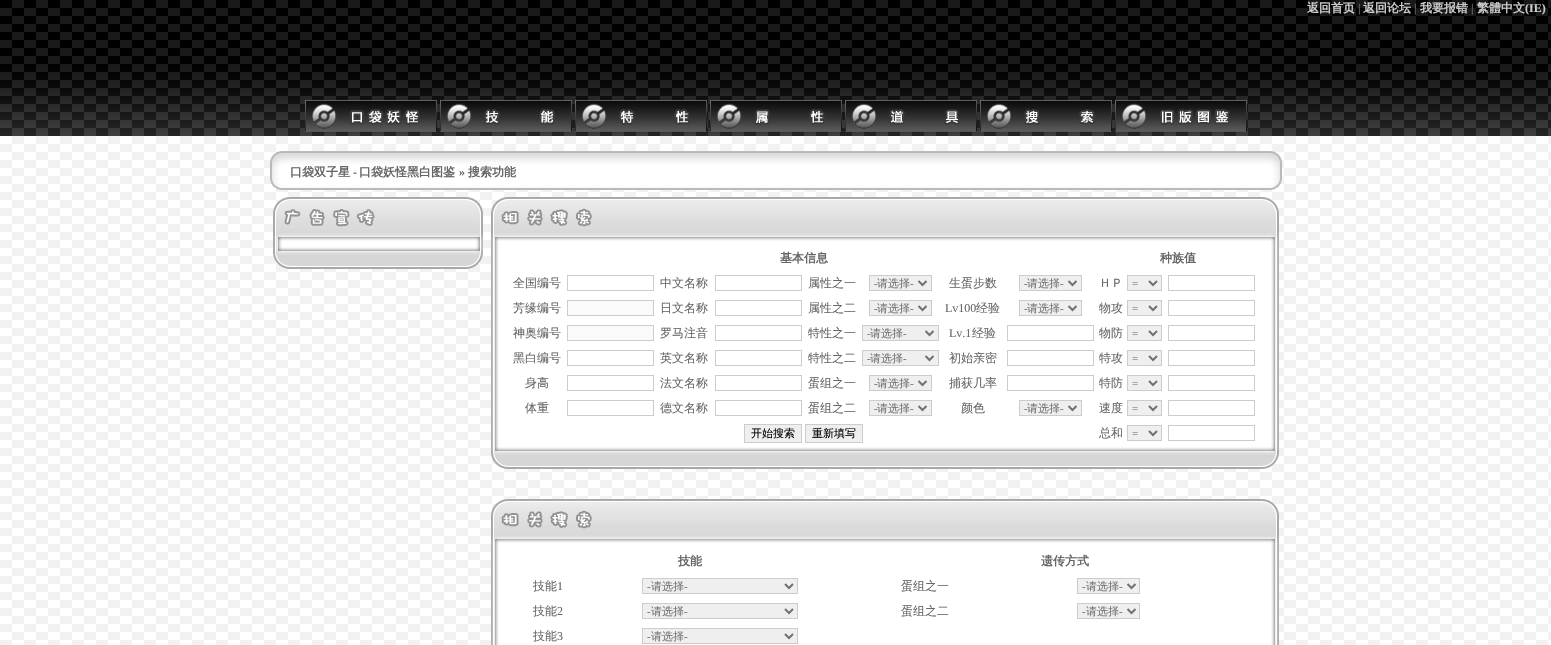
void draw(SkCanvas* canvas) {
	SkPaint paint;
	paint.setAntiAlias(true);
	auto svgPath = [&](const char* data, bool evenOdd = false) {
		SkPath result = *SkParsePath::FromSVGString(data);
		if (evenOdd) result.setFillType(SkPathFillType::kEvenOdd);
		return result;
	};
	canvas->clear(0xffffffff);
	canvas->drawImageRect(SkImages::DeferredFromEncodedData(SkData::MakeFromFileName("img1.png")), SkRect::MakeXYWH(0, 0, 1551, 136), SkSamplingOptions());
	SkFont f1(fontMgr->matchFamilyStyle("WenQuanYi Zen Hei", SkFontStyle::Bold()), 12);
	f1.setSubpixel(true);
	paint.setColor(0xffcccccc);
	canvas->drawString("返回首页", 1307, 12, f1, paint);
	SkFont f2(fontMgr->matchFamilyStyle("Liberation Serif", SkFontStyle::Bold()), 12);
	f2.setSubpixel(true);
	paint.setColor(0xff666666);
	canvas->drawString("|", 1358, 12, f2, paint);
	paint.setColor(0xffcccccc);
	canvas->drawString("返回论坛", 1363, 12, f1, paint);
	paint.setColor(0xff666666);
	canvas->drawString("|", 1414, 12, f2, paint);
	paint.setColor(0xffcccccc);
	canvas->drawString("我要报错", 1420, 12, f1, paint);
	paint.setColor(0xff666666);
	canvas->drawString("|", 1471, 12, f2, paint);
	paint.setColor(0xffcccccc);
	canvas->drawString("繁體中文", 1477, 12, f1, paint);
	canvas->drawString("(IE)", 1525, 12, f2, paint);
	canvas->drawImageRect(SkImages::DeferredFromEncodedData(SkData::MakeFromFileName("img2.png")), SkRect::MakeXYWH(305, 100, 132, 32), SkSamplingOptions());
	canvas->drawImageRect(SkImages::DeferredFromEncodedData(SkData::MakeFromFileName("img3.png")), SkRect::MakeXYWH(440, 100, 132, 32), SkSamplingOptions());
	canvas->drawImageRect(SkImages::DeferredFromEncodedData(SkData::MakeFromFileName("img4.png")), SkRect::MakeXYWH(575, 100, 132, 32), SkSamplingOptions());
	canvas->drawImageRect(SkImages::DeferredFromEncodedData(SkData::MakeFromFileName("img5.png")), SkRect::MakeXYWH(710, 100, 132, 32), SkSamplingOptions());
	canvas->drawImageRect(SkImages::DeferredFromEncodedData(SkData::MakeFromFileName("img6.png")), SkRect::MakeXYWH(845, 100, 132, 32), SkSamplingOptions());
	canvas->drawImageRect(SkImages::DeferredFromEncodedData(SkData::MakeFromFileName("img7.png")), SkRect::MakeXYWH(980, 100, 132, 32), SkSamplingOptions());
	canvas->drawImageRect(SkImages::DeferredFromEncodedData(SkData::MakeFromFileName("img8.png")), SkRect::MakeXYWH(1115, 100, 132, 32), SkSamplingOptions());
	canvas->drawImageRect(SkImages::DeferredFromEncodedData(SkData::MakeFromFileName("img9.png")), SkRect::MakeXYWH(0, 136, 1551, 509), SkSamplingOptions());
	canvas->drawImageRect(SkImages::DeferredFromEncodedData(SkData::MakeFromFileName("img10.png")), SkRect::MakeXYWH(270, 151, 20, 39), SkSamplingOptions());
	canvas->drawImageRect(SkImages::DeferredFromEncodedData(SkData::MakeFromFileName("img11.png")), SkRect::MakeXYWH(290, 151, 972, 39), SkSamplingOptions());
	paint.setColor(0xff666666);
	canvas->drawString("口袋双子星", 290, 176, f1, paint);
	canvas->drawString("-", 353, 176, f2, paint);
	canvas->drawString("口袋妖怪黑白图鉴", 359, 176, f1, paint);
	canvas->drawString("»", 459, 176, f2, paint);
	canvas->drawString("搜索功能", 468, 176, f1, paint);
	canvas->drawImageRect(SkImages::DeferredFromEncodedData(SkData::MakeFromFileName("img12.png")), SkRect::MakeXYWH(1262, 151, 20, 39), SkSamplingOptions());
	canvas->drawImageRect(SkImages::DeferredFromEncodedData(SkData::MakeFromFileName("img13.png")), SkRect::MakeXYWH(273, 197, 210, 49), SkSamplingOptions());
	canvas->drawImageRect(SkImages::DeferredFromEncodedData(SkData::MakeFromFileName("img14.png")), SkRect::MakeXYWH(284, 209, 91, 18), SkSamplingOptions());
	canvas->drawImageRect(SkImages::DeferredFromEncodedData(SkData::MakeFromFileName("img15.png")), SkRect::MakeXYWH(273, 246, 210, 23), SkSamplingOptions());
	canvas->drawImageRect(SkImages::DeferredFromEncodedData(SkData::MakeFromFileName("img16.png")), SkRect::MakeXYWH(491, 197, 788, 49), SkSamplingOptions());
	canvas->drawImageRect(SkImages::DeferredFromEncodedData(SkData::MakeFromFileName("img17.png")), SkRect::MakeXYWH(501, 208, 91, 19), SkSamplingOptions());
	canvas->drawImageRect(SkImages::DeferredFromEncodedData(SkData::MakeFromFileName("img18.png")), SkRect::MakeXYWH(491, 246, 788, 200), SkSamplingOptions());
	canvas->drawString("基本信息", 780, 262, f1, paint);
	canvas->drawString("种族值", 1160, 262, f1, paint);
	SkFont f3(fontMgr->matchFamilyStyle("WenQuanYi Zen Hei", SkFontStyle(500, SkFontStyle::kNormal_Width, SkFontStyle::kUpright_Slant)), 12);
	f3.setSubpixel(true);
	canvas->drawString("全国编号", 513, 287, f3, paint);
	paint.setStroke(true);
	paint.setStrokeWidth(1);
	paint.setColor(0xffcccccc);
	canvas->drawRect(SkRect::MakeXYWH(567.5, 275.5, 86, 15), paint);
	paint.setStroke(false);
	paint.setColor(0xff666666);
	canvas->drawString("中文名称", 660, 287, f3, paint);
	paint.setStroke(true);
	paint.setColor(0xffcccccc);
	canvas->drawRect(SkRect::MakeXYWH(715.5, 275.5, 86, 15), paint);
	paint.setStroke(false);
	paint.setColor(0xff666666);
	canvas->drawString("属性之一", 808, 287, f3, paint);
	paint.setColor(0xffefefef);
	canvas->drawRect(SkRect::MakeXYWH(869.5, 275.5, 62, 15), paint);
	paint.setStroke(true);
	paint.setColor(0xffcccccc);
	canvas->drawRect(SkRect::MakeXYWH(869.5, 275.5, 62, 15), paint);
	paint.setStrokeWidth(2);
	paint.setColor(0xff717171);
	canvas->drawPath(svgPath("M918.5 281L922.5 285L926.5 281"), paint);
	SkFont f4(fontMgr->matchFamilyStyle("Liberation Serif", SkFontStyle::Normal()), 11);
	f4.setSubpixel(true);
	paint.setStroke(false);
	canvas->drawString("-", 874, 287, f4, paint);
	SkFont f5(fontMgr->matchFamilyStyle("WenQuanYi Zen Hei", SkFontStyle(500, SkFontStyle::kNormal_Width, SkFontStyle::kUpright_Slant)), 11);
	f5.setSubpixel(true);
	canvas->drawString("请选择", 877, 287, f5, paint);
	canvas->drawString("-", 910, 287, f4, paint);
	paint.setColor(0xff666666);
	canvas->drawString("生蛋步数", 949, 287, f3, paint);
	paint.setColor(0xffefefef);
	canvas->drawRect(SkRect::MakeXYWH(1019.5, 275.5, 62, 15), paint);
	paint.setStroke(true);
	paint.setStrokeWidth(1);
	paint.setColor(0xffcccccc);
	canvas->drawRect(SkRect::MakeXYWH(1019.5, 275.5, 62, 15), paint);
	paint.setStrokeWidth(2);
	paint.setColor(0xff717171);
	canvas->drawPath(svgPath("M1068.5 281L1072.5 285L1076.5 281"), paint);
	paint.setStroke(false);
	canvas->drawString("-", 1024, 287, f4, paint);
	canvas->drawString("请选择", 1027, 287, f5, paint);
	canvas->drawString("-", 1060, 287, f4, paint);
	paint.setColor(0xff666666);
	canvas->drawString("ＨＰ", 1099, 287, f3, paint);
	paint.setColor(0xffefefef);
	canvas->drawRect(SkRect::MakeXYWH(1127.5, 275.5, 34, 15), paint);
	paint.setStroke(true);
	paint.setStrokeWidth(1);
	paint.setColor(0xffcccccc);
	canvas->drawRect(SkRect::MakeXYWH(1127.5, 275.5, 34, 15), paint);
	paint.setStrokeWidth(2);
	paint.setColor(0xff717171);
	canvas->drawPath(svgPath("M1149 281L1153 285L1157 281"), paint);
	paint.setStroke(false);
	canvas->drawString("=", 1132, 287, f4, paint);
	paint.setStroke(true);
	paint.setStrokeWidth(1);
	paint.setColor(0xffcccccc);
	canvas->drawRect(SkRect::MakeXYWH(1168.5, 275.5, 86, 15), paint);
	paint.setStroke(false);
	paint.setColor(0xff666666);
	canvas->drawString("芳缘编号", 513, 312, f3, paint);
	paint.setColor(0xfffafafa);
	canvas->drawRect(SkRect::MakeXYWH(567.5, 300.5, 86, 15), paint);
	paint.setStroke(true);
	paint.setColor(0xffcccccc);
	canvas->drawRect(SkRect::MakeXYWH(567.5, 300.5, 86, 15), paint);
	paint.setStroke(false);
	paint.setColor(0xff666666);
	canvas->drawString("日文名称", 660, 312, f3, paint);
	paint.setStroke(true);
	paint.setColor(0xffcccccc);
	canvas->drawRect(SkRect::MakeXYWH(715.5, 300.5, 86, 15), paint);
	paint.setStroke(false);
	paint.setColor(0xff666666);
	canvas->drawString("属性之二", 808, 312, f3, paint);
	paint.setColor(0xffefefef);
	canvas->drawRect(SkRect::MakeXYWH(869.5, 300.5, 62, 15), paint);
	paint.setStroke(true);
	paint.setColor(0xffcccccc);
	canvas->drawRect(SkRect::MakeXYWH(869.5, 300.5, 62, 15), paint);
	paint.setStrokeWidth(2);
	paint.setColor(0xff717171);
	canvas->drawPath(svgPath("M918.5 306L922.5 310L926.5 306"), paint);
	paint.setStroke(false);
	canvas->drawString("-", 874, 312, f4, paint);
	canvas->drawString("请选择", 877, 312, f5, paint);
	canvas->drawString("-", 910, 312, f4, paint);
	SkFont f6(fontMgr->matchFamilyStyle("Liberation Serif", SkFontStyle::Normal()), 12);
	f6.setSubpixel(true);
	paint.setColor(0xff666666);
	canvas->drawString("Lv100", 945, 312, f6, paint);
	canvas->drawString("经验", 976, 312, f3, paint);
	paint.setColor(0xffefefef);
	canvas->drawRect(SkRect::MakeXYWH(1019.5, 300.5, 62, 15), paint);
	paint.setStroke(true);
	paint.setStrokeWidth(1);
	paint.setColor(0xffcccccc);
	canvas->drawRect(SkRect::MakeXYWH(1019.5, 300.5, 62, 15), paint);
	paint.setStrokeWidth(2);
	paint.setColor(0xff717171);
	canvas->drawPath(svgPath("M1068.5 306L1072.5 310L1076.5 306"), paint);
	paint.setStroke(false);
	canvas->drawString("-", 1024, 312, f4, paint);
	canvas->drawString("请选择", 1027, 312, f5, paint);
	canvas->drawString("-", 1060, 312, f4, paint);
	paint.setColor(0xff666666);
	canvas->drawString("物攻", 1099, 312, f3, paint);
	paint.setColor(0xffefefef);
	canvas->drawRect(SkRect::MakeXYWH(1127.5, 300.5, 34, 15), paint);
	paint.setStroke(true);
	paint.setStrokeWidth(1);
	paint.setColor(0xffcccccc);
	canvas->drawRect(SkRect::MakeXYWH(1127.5, 300.5, 34, 15), paint);
	paint.setStrokeWidth(2);
	paint.setColor(0xff717171);
	canvas->drawPath(svgPath("M1149 306L1153 310L1157 306"), paint);
	paint.setStroke(false);
	canvas->drawString("=", 1132, 312, f4, paint);
	paint.setStroke(true);
	paint.setStrokeWidth(1);
	paint.setColor(0xffcccccc);
	canvas->drawRect(SkRect::MakeXYWH(1168.5, 300.5, 86, 15), paint);
	paint.setStroke(false);
	paint.setColor(0xff666666);
	canvas->drawString("神奥编号", 513, 337, f3, paint);
	paint.setColor(0xfffafafa);
	canvas->drawRect(SkRect::MakeXYWH(567.5, 325.5, 86, 15), paint);
	paint.setStroke(true);
	paint.setColor(0xffcccccc);
	canvas->drawRect(SkRect::MakeXYWH(567.5, 325.5, 86, 15), paint);
	paint.setStroke(false);
	paint.setColor(0xff666666);
	canvas->drawString("罗马注音", 660, 337, f3, paint);
	paint.setStroke(true);
	paint.setColor(0xffcccccc);
	canvas->drawRect(SkRect::MakeXYWH(715.5, 325.5, 86, 15), paint);
	paint.setStroke(false);
	paint.setColor(0xff666666);
	canvas->drawString("特性之一", 808, 337, f3, paint);
	paint.setColor(0xffefefef);
	canvas->drawRect(SkRect::MakeXYWH(862.5, 325.5, 76, 15), paint);
	paint.setStroke(true);
	paint.setColor(0xffcccccc);
	canvas->drawRect(SkRect::MakeXYWH(862.5, 325.5, 76, 15), paint);
	paint.setStrokeWidth(2);
	paint.setColor(0xff717171);
	canvas->drawPath(svgPath("M925.5 331L929.5 335L933.5 331"), paint);
	paint.setStroke(false);
	canvas->drawString("-", 867, 337, f4, paint);
	canvas->drawString("请选择", 870, 337, f5, paint);
	canvas->drawString("-", 903, 337, f4, paint);
	paint.setColor(0xff666666);
	canvas->drawString("Lv.1", 949, 337, f6, paint);
	canvas->drawString("经验", 972, 337, f3, paint);
	paint.setStroke(true);
	paint.setStrokeWidth(1);
	paint.setColor(0xffcccccc);
	canvas->drawRect(SkRect::MakeXYWH(1007.5, 325.5, 86, 15), paint);
	paint.setStroke(false);
	paint.setColor(0xff666666);
	canvas->drawString("物防", 1099, 337, f3, paint);
	paint.setColor(0xffefefef);
	canvas->drawRect(SkRect::MakeXYWH(1127.5, 325.5, 34, 15), paint);
	paint.setStroke(true);
	paint.setColor(0xffcccccc);
	canvas->drawRect(SkRect::MakeXYWH(1127.5, 325.5, 34, 15), paint);
	paint.setStrokeWidth(2);
	paint.setColor(0xff717171);
	canvas->drawPath(svgPath("M1149 331L1153 335L1157 331"), paint);
	paint.setStroke(false);
	canvas->drawString("=", 1132, 337, f4, paint);
	paint.setStroke(true);
	paint.setStrokeWidth(1);
	paint.setColor(0xffcccccc);
	canvas->drawRect(SkRect::MakeXYWH(1168.5, 325.5, 86, 15), paint);
	paint.setStroke(false);
	paint.setColor(0xff666666);
	canvas->drawString("黑白编号", 513, 362, f3, paint);
	paint.setStroke(true);
	paint.setColor(0xffcccccc);
	canvas->drawRect(SkRect::MakeXYWH(567.5, 350.5, 86, 15), paint);
	paint.setStroke(false);
	paint.setColor(0xff666666);
	canvas->drawString("英文名称", 660, 362, f3, paint);
	paint.setStroke(true);
	paint.setColor(0xffcccccc);
	canvas->drawRect(SkRect::MakeXYWH(715.5, 350.5, 86, 15), paint);
	paint.setStroke(false);
	paint.setColor(0xff666666);
	canvas->drawString("特性之二", 808, 362, f3, paint);
	paint.setColor(0xffefefef);
	canvas->drawRect(SkRect::MakeXYWH(862.5, 350.5, 76, 15), paint);
	paint.setStroke(true);
	paint.setColor(0xffcccccc);
	canvas->drawRect(SkRect::MakeXYWH(862.5, 350.5, 76, 15), paint);
	paint.setStrokeWidth(2);
	paint.setColor(0xff717171);
	canvas->drawPath(svgPath("M925.5 356L929.5 360L933.5 356"), paint);
	paint.setStroke(false);
	canvas->drawString("-", 867, 362, f4, paint);
	canvas->drawString("请选择", 870, 362, f5, paint);
	canvas->drawString("-", 903, 362, f4, paint);
	paint.setColor(0xff666666);
	canvas->drawString("初始亲密", 949, 362, f3, paint);
	paint.setStroke(true);
	paint.setStrokeWidth(1);
	paint.setColor(0xffcccccc);
	canvas->drawRect(SkRect::MakeXYWH(1007.5, 350.5, 86, 15), paint);
	paint.setStroke(false);
	paint.setColor(0xff666666);
	canvas->drawString("特攻", 1099, 362, f3, paint);
	paint.setColor(0xffefefef);
	canvas->drawRect(SkRect::MakeXYWH(1127.5, 350.5, 34, 15), paint);
	paint.setStroke(true);
	paint.setColor(0xffcccccc);
	canvas->drawRect(SkRect::MakeXYWH(1127.5, 350.5, 34, 15), paint);
	paint.setStrokeWidth(2);
	paint.setColor(0xff717171);
	canvas->drawPath(svgPath("M1149 356L1153 360L1157 356"), paint);
	paint.setStroke(false);
	canvas->drawString("=", 1132, 362, f4, paint);
	paint.setStroke(true);
	paint.setStrokeWidth(1);
	paint.setColor(0xffcccccc);
	canvas->drawRect(SkRect::MakeXYWH(1168.5, 350.5, 86, 15), paint);
	paint.setStroke(false);
	paint.setColor(0xff666666);
	canvas->drawString("身高", 525, 387, f3, paint);
	paint.setStroke(true);
	paint.setColor(0xffcccccc);
	canvas->drawRect(SkRect::MakeXYWH(567.5, 375.5, 86, 15), paint);
	paint.setStroke(false);
	paint.setColor(0xff666666);
	canvas->drawString("法文名称", 660, 387, f3, paint);
	paint.setStroke(true);
	paint.setColor(0xffcccccc);
	canvas->drawRect(SkRect::MakeXYWH(715.5, 375.5, 86, 15), paint);
	paint.setStroke(false);
	paint.setColor(0xff666666);
	canvas->drawString("蛋组之一", 808, 387, f3, paint);
	paint.setColor(0xffefefef);
	canvas->drawRect(SkRect::MakeXYWH(869.5, 375.5, 62, 15), paint);
	paint.setStroke(true);
	paint.setColor(0xffcccccc);
	canvas->drawRect(SkRect::MakeXYWH(869.5, 375.5, 62, 15), paint);
	paint.setStrokeWidth(2);
	paint.setColor(0xff717171);
	canvas->drawPath(svgPath("M918.5 381L922.5 385L926.5 381"), paint);
	paint.setStroke(false);
	canvas->drawString("-", 874, 387, f4, paint);
	canvas->drawString("请选择", 877, 387, f5, paint);
	canvas->drawString("-", 910, 387, f4, paint);
	paint.setColor(0xff666666);
	canvas->drawString("捕获几率", 949, 387, f3, paint);
	paint.setStroke(true);
	paint.setStrokeWidth(1);
	paint.setColor(0xffcccccc);
	canvas->drawRect(SkRect::MakeXYWH(1007.5, 375.5, 86, 15), paint);
	paint.setStroke(false);
	paint.setColor(0xff666666);
	canvas->drawString("特防", 1099, 387, f3, paint);
	paint.setColor(0xffefefef);
	canvas->drawRect(SkRect::MakeXYWH(1127.5, 375.5, 34, 15), paint);
	paint.setStroke(true);
	paint.setColor(0xffcccccc);
	canvas->drawRect(SkRect::MakeXYWH(1127.5, 375.5, 34, 15), paint);
	paint.setStrokeWidth(2);
	paint.setColor(0xff717171);
	canvas->drawPath(svgPath("M1149 381L1153 385L1157 381"), paint);
	paint.setStroke(false);
	canvas->drawString("=", 1132, 387, f4, paint);
	paint.setStroke(true);
	paint.setStrokeWidth(1);
	paint.setColor(0xffcccccc);
	canvas->drawRect(SkRect::MakeXYWH(1168.5, 375.5, 86, 15), paint);
	paint.setStroke(false);
	paint.setColor(0xff666666);
	canvas->drawString("体重", 525, 412, f3, paint);
	paint.setStroke(true);
	paint.setColor(0xffcccccc);
	canvas->drawRect(SkRect::MakeXYWH(567.5, 400.5, 86, 15), paint);
	paint.setStroke(false);
	paint.setColor(0xff666666);
	canvas->drawString("德文名称", 660, 412, f3, paint);
	paint.setStroke(true);
	paint.setColor(0xffcccccc);
	canvas->drawRect(SkRect::MakeXYWH(715.5, 400.5, 86, 15), paint);
	paint.setStroke(false);
	paint.setColor(0xff666666);
	canvas->drawString("蛋组之二", 808, 412, f3, paint);
	paint.setColor(0xffefefef);
	canvas->drawRect(SkRect::MakeXYWH(869.5, 400.5, 62, 15), paint);
	paint.setStroke(true);
	paint.setColor(0xffcccccc);
	canvas->drawRect(SkRect::MakeXYWH(869.5, 400.5, 62, 15), paint);
	paint.setStrokeWidth(2);
	paint.setColor(0xff717171);
	canvas->drawPath(svgPath("M918.5 406L922.5 410L926.5 406"), paint);
	paint.setStroke(false);
	canvas->drawString("-", 874, 412, f4, paint);
	canvas->drawString("请选择", 877, 412, f5, paint);
	canvas->drawString("-", 910, 412, f4, paint);
	paint.setColor(0xff666666);
	canvas->drawString("颜色", 961, 412, f3, paint);
	paint.setColor(0xffefefef);
	canvas->drawRect(SkRect::MakeXYWH(1019.5, 400.5, 62, 15), paint);
	paint.setStroke(true);
	paint.setStrokeWidth(1);
	paint.setColor(0xffcccccc);
	canvas->drawRect(SkRect::MakeXYWH(1019.5, 400.5, 62, 15), paint);
	paint.setStrokeWidth(2);
	paint.setColor(0xff717171);
	canvas->drawPath(svgPath("M1068.5 406L1072.5 410L1076.5 406"), paint);
	paint.setStroke(false);
	canvas->drawString("-", 1024, 412, f4, paint);
	canvas->drawString("请选择", 1027, 412, f5, paint);
	canvas->drawString("-", 1060, 412, f4, paint);
	paint.setColor(0xff666666);
	canvas->drawString("速度", 1099, 412, f3, paint);
	paint.setColor(0xffefefef);
	canvas->drawRect(SkRect::MakeXYWH(1127.5, 400.5, 34, 15), paint);
	paint.setStroke(true);
	paint.setStrokeWidth(1);
	paint.setColor(0xffcccccc);
	canvas->drawRect(SkRect::MakeXYWH(1127.5, 400.5, 34, 15), paint);
	paint.setStrokeWidth(2);
	paint.setColor(0xff717171);
	canvas->drawPath(svgPath("M1149 406L1153 410L1157 406"), paint);
	paint.setStroke(false);
	canvas->drawString("=", 1132, 412, f4, paint);
	paint.setStroke(true);
	paint.setStrokeWidth(1);
	paint.setColor(0xffcccccc);
	canvas->drawRect(SkRect::MakeXYWH(1168.5, 400.5, 86, 15), paint);
	paint.setStroke(false);
	paint.setColor(0xffefefef);
	canvas->drawRect(SkRect::MakeXYWH(744.5, 424.5, 57, 18), paint);
	paint.setStroke(true);
	paint.setColor(0xffcccccc);
	canvas->drawRect(SkRect::MakeXYWH(744.5, 424.5, 57, 18), paint);
	paint.setStroke(false);
	paint.setColor(0xff000000);
	canvas->drawString("开始搜索", 751, 437, f5, paint);
	paint.setColor(0xffefefef);
	canvas->drawRect(SkRect::MakeXYWH(805.5, 424.5, 57, 18), paint);
	paint.setStroke(true);
	paint.setColor(0xffcccccc);
	canvas->drawRect(SkRect::MakeXYWH(805.5, 424.5, 57, 18), paint);
	paint.setStroke(false);
	paint.setColor(0xff000000);
	canvas->drawString("重新填写", 812, 437, f5, paint);
	paint.setColor(0xff666666);
	canvas->drawString("总和", 1099, 437, f3, paint);
	paint.setColor(0xffefefef);
	canvas->drawRect(SkRect::MakeXYWH(1127.5, 425.5, 34, 15), paint);
	paint.setStroke(true);
	paint.setColor(0xffcccccc);
	canvas->drawRect(SkRect::MakeXYWH(1127.5, 425.5, 34, 15), paint);
	paint.setStrokeWidth(2);
	paint.setColor(0xff717171);
	canvas->drawPath(svgPath("M1149 431L1153 435L1157 431"), paint);
	paint.setStroke(false);
	canvas->drawString("=", 1132, 437, f4, paint);
	paint.setStroke(true);
	paint.setStrokeWidth(1);
	paint.setColor(0xffcccccc);
	canvas->drawRect(SkRect::MakeXYWH(1168.5, 425.5, 86, 15), paint);
	canvas->drawImageRect(SkImages::DeferredFromEncodedData(SkData::MakeFromFileName("img19.png")), SkRect::MakeXYWH(491, 446, 788, 23), SkSamplingOptions());
	canvas->drawImageRect(SkImages::DeferredFromEncodedData(SkData::MakeFromFileName("img20.png")), SkRect::MakeXYWH(491, 499, 788, 49), SkSamplingOptions());
	canvas->drawImageRect(SkImages::DeferredFromEncodedData(SkData::MakeFromFileName("img17.png")), SkRect::MakeXYWH(501, 510, 91, 19), SkSamplingOptions());
	canvas->drawImageRect(SkImages::DeferredFromEncodedData(SkData::MakeFromFileName("img21.png")), SkRect::MakeXYWH(491, 548, 788, 97), SkSamplingOptions());
	paint.setStroke(false);
	paint.setColor(0xff666666);
	canvas->drawString("技能", 678, 565, f1, paint);
	canvas->drawString("技能", 533, 590, f3, paint);
	canvas->drawString("1", 557, 590, f6, paint);
	paint.setColor(0xffefefef);
	canvas->drawRect(SkRect::MakeXYWH(642.5, 578.5, 155, 15), paint);
	paint.setStroke(true);
	paint.setColor(0xffcccccc);
	canvas->drawRect(SkRect::MakeXYWH(642.5, 578.5, 155, 15), paint);
	paint.setStrokeWidth(2);
	paint.setColor(0xff717171);
	canvas->drawPath(svgPath("M785 584L789 588L793 584"), paint);
	paint.setStroke(false);
	canvas->drawString("-", 647, 590, f4, paint);
	canvas->drawString("请选择", 651, 590, f5, paint);
	canvas->drawString("-", 684, 590, f4, paint);
	paint.setColor(0xff666666);
	canvas->drawString("技能", 533, 615, f3, paint);
	canvas->drawString("2", 557, 615, f6, paint);
	paint.setColor(0xffefefef);
	canvas->drawRect(SkRect::MakeXYWH(642.5, 603.5, 155, 15), paint);
	paint.setStroke(true);
	paint.setStrokeWidth(1);
	paint.setColor(0xffcccccc);
	canvas->drawRect(SkRect::MakeXYWH(642.5, 603.5, 155, 15), paint);
	paint.setStrokeWidth(2);
	paint.setColor(0xff717171);
	canvas->drawPath(svgPath("M785 609L789 613L793 609"), paint);
	paint.setStroke(false);
	canvas->drawString("-", 647, 615, f4, paint);
	canvas->drawString("请选择", 651, 615, f5, paint);
	canvas->drawString("-", 684, 615, f4, paint);
	paint.setColor(0xff666666);
	canvas->drawString("技能", 533, 640, f3, paint);
	canvas->drawString("3", 557, 640, f6, paint);
	paint.setColor(0xffefefef);
	canvas->drawRect(SkRect::MakeXYWH(642.5, 628.5, 155, 15), paint);
	paint.setStroke(true);
	paint.setStrokeWidth(1);
	paint.setColor(0xffcccccc);
	canvas->drawRect(SkRect::MakeXYWH(642.5, 628.5, 155, 15), paint);
	paint.setStrokeWidth(2);
	paint.setColor(0xff717171);
	canvas->drawPath(svgPath("M785 634L789 638L793 634"), paint);
	paint.setStroke(false);
	canvas->drawString("-", 647, 640, f4, paint);
	canvas->drawString("请选择", 651, 640, f5, paint);
	canvas->drawString("-", 684, 640, f4, paint);
	paint.setColor(0xff666666);
	canvas->drawString("遗传方式", 1041, 565, f1, paint);
	canvas->drawString("蛋组之一", 901, 590, f3, paint);
	paint.setColor(0xffefefef);
	canvas->drawRect(SkRect::MakeXYWH(1077.5, 578.5, 62, 15), paint);
	paint.setStroke(true);
	paint.setStrokeWidth(1);
	paint.setColor(0xffcccccc);
	canvas->drawRect(SkRect::MakeXYWH(1077.5, 578.5, 62, 15), paint);
	paint.setStrokeWidth(2);
	paint.setColor(0xff717171);
	canvas->drawPath(svgPath("M1127.5 584L1131.5 588L1135.5 584"), paint);
	paint.setStroke(false);
	canvas->drawString("-", 1082, 590, f4, paint);
	canvas->drawString("请选择", 1086, 590, f5, paint);
	canvas->drawString("-", 1119, 590, f4, paint);
	paint.setColor(0xff666666);
	canvas->drawString("蛋组之二", 901, 615, f3, paint);
	paint.setColor(0xffefefef);
	canvas->drawRect(SkRect::MakeXYWH(1077.5, 603.5, 62, 15), paint);
	paint.setStroke(true);
	paint.setStrokeWidth(1);
	paint.setColor(0xffcccccc);
	canvas->drawRect(SkRect::MakeXYWH(1077.5, 603.5, 62, 15), paint);
	paint.setStrokeWidth(2);
	paint.setColor(0xff717171);
	canvas->drawPath(svgPath("M1127.5 609L1131.5 613L1135.5 609"), paint);
	paint.setStroke(false);
	canvas->drawString("-", 1082, 615, f4, paint);
	canvas->drawString("请选择", 1086, 615, f5, paint);
	canvas->drawString("-", 1119, 615, f4, paint);
}
